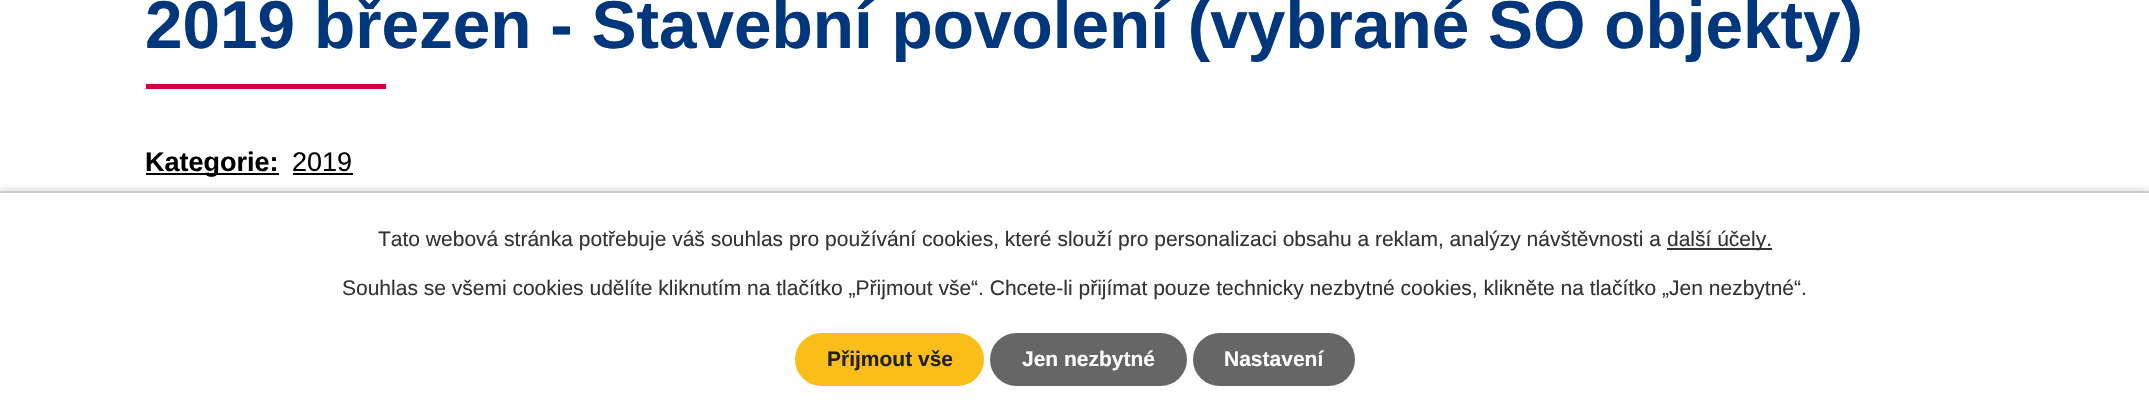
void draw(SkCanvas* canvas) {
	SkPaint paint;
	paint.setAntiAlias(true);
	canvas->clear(0xffffffff);
	SkFont f1(fontMgr->matchFamilyStyle("Liberation Sans", SkFontStyle::Bold()), 67.5);
	f1.setSubpixel(true);
	paint.setColor(0xff00367c);
	canvas->drawString("2019 březen - Stavební povolení (vybrané SO objekty)", 145, 48, f1, paint);
	paint.setColor(0xffcf003d);
	canvas->drawRect(SkRect::MakeXYWH(146, 84, 240, 5), paint);
	paint.setColor(0xff000000);
	canvas->drawRect(SkRect::MakeXYWH(146, 173, 133, 2), paint);
	SkFont f2(fontMgr->matchFamilyStyle("Liberation Sans", SkFontStyle::Bold()), 27);
	f2.setSubpixel(true);
	canvas->drawString("Kategorie:", 145, 171, f2, paint);
	SkFont f3(fontMgr->matchFamilyStyle("Liberation Sans", SkFontStyle::Normal()), 27);
	f3.setSubpixel(true);
	canvas->drawString("2019", 292, 171, f3, paint);
	canvas->drawRect(SkRect::MakeXYWH(293, 173, 60, 2), paint);
	paint.setColor(0x33000000);
	paint.setMaskFilter(SkMaskFilter::MakeBlur(kNormal_SkBlurStyle, 4));
	canvas->drawRect(SkRect::MakeXYWH(0, 191, 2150, 223), paint);
	paint.setMaskFilter(nullptr);
	paint.setColor(0xffffffff);
	canvas->drawRect(SkRect::MakeXYWH(0, 193, 2149, 221), paint);
	paint.setColor(0xffcccccc);
	canvas->drawRect(SkRect::MakeXYWH(0, 191, 2149, 2), paint);
	SkFont f4(fontMgr->matchFamilyStyle("Liberation Sans", SkFontStyle::Normal()), 21);
	f4.setSubpixel(true);
	paint.setColor(0xff333333);
	canvas->drawString("Tato webová stránka potřebuje váš souhlas pro používání cookies, které slouží pro personalizaci obsahu a reklam, analýzy návštěvnosti a", 378, 246, f4, paint);
	canvas->drawRect(SkRect::MakeXYWH(1667, 248, 105, 2), paint);
	canvas->drawString("další účely.", 1667, 246, f4, paint);
	canvas->drawString("Souhlas se všemi cookies udělíte kliknutím na tlačítko „Přijmout vše“. Chcete-li přijímat pouze technicky nezbytné cookies, klikněte na tlačítko „Jen nezbytné“.", 342, 295, f4, paint);
	paint.setColor(0xfffbbd18);
	canvas->drawRoundRect(SkRect::MakeXYWH(795, 333, 189, 53), 26.5, 26.5, paint);
	SkFont f5(fontMgr->matchFamilyStyle("Liberation Sans", SkFontStyle::Bold()), 21);
	f5.setSubpixel(true);
	paint.setColor(0xff212121);
	canvas->drawString("Přijmout vše", 827, 366, f5, paint);
	paint.setColor(0xff666666);
	canvas->drawRoundRect(SkRect::MakeXYWH(990, 333, 197, 53), 26.5, 26.5, paint);
	paint.setColor(0xffffffff);
	canvas->drawString("Jen nezbytné", 1022, 366, f5, paint);
	paint.setColor(0xff666666);
	canvas->drawRoundRect(SkRect::MakeXYWH(1193, 333, 162, 53), 26.5, 26.5, paint);
	paint.setColor(0xffffffff);
	canvas->drawString("Nastavení", 1224, 366, f5, paint);
}
